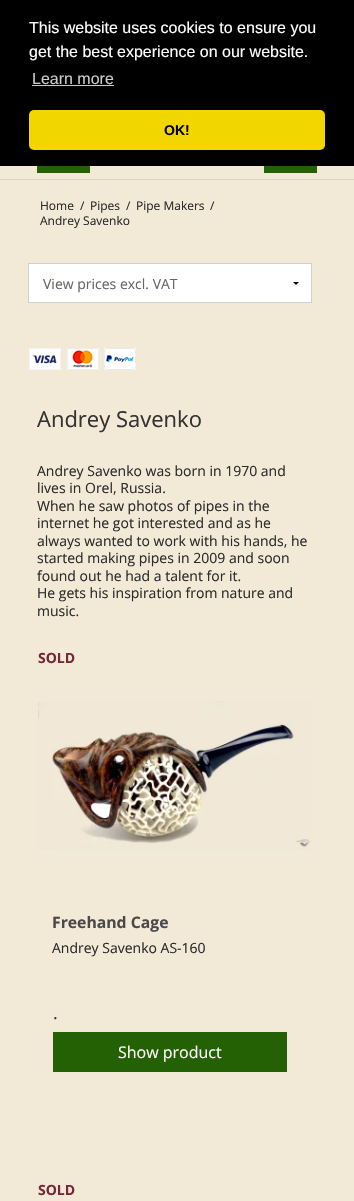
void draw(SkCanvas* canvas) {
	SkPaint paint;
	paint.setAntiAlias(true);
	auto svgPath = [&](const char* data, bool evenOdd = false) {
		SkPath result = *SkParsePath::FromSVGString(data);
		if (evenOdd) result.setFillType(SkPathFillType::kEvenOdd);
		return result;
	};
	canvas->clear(0xfff2e9d7);
	paint.setColor(0xff000000);
	canvas->drawRect(SkRect::MakeXYWH(0, 0, 354, 166), paint);
	SkFont f1(fontMgr->matchFamilyStyle("Liberation Sans", SkFontStyle::Normal()), 16);
	f1.setSubpixel(true);
	paint.setColor(0xffffffff);
	canvas->drawString("This website uses cookies to ensure you", 29, 33, f1, paint);
	canvas->drawString("get the best experience on our website.", 29, 57, f1, paint);
	paint.setColor(0xffcccccc);
	canvas->drawString("Learn more", 32, 84, f1, paint);
	canvas->drawRect(SkRect::MakeXYWH(32, 85, 82, 1), paint);
	paint.setColor(0xfff1d600);
	canvas->drawRoundRect(SkRect::MakeXYWH(29, 110, 296, 40), 5, 5, paint);
	SkFont f2(fontMgr->matchFamilyStyle("Liberation Sans", SkFontStyle::Bold()), 14);
	f2.setSubpixel(true);
	paint.setColor(0xff000000);
	canvas->drawString("OK!", 164, 135, f2, paint);
	paint.setColor(0xffe5d4b1);
	canvas->drawRect(SkRect::MakeXYWH(0, 179, 354, 1), paint);
	paint.setColor(0xff246104);
	canvas->drawRect(SkRect::MakeXYWH(37, 166, 53, 7), paint);
	canvas->drawRect(SkRect::MakeXYWH(264, 166, 53, 7), paint);
	SkFont f3(fontMgr->matchFamilyStyle("Open Sans", SkFontStyle::Normal()), 12);
	f3.setSubpixel(true);
	paint.setColor(0xff2b2b2b);
	canvas->drawString("Home", 40, 210, f3, paint);
	canvas->drawString("/", 80, 210, f3, paint);
	canvas->drawString("Pipes", 90, 210, f3, paint);
	canvas->drawString("/", 126, 210, f3, paint);
	canvas->drawString("Pipe Makers", 136, 210, f3, paint);
	canvas->drawString("/", 210, 210, f3, paint);
	canvas->drawString("Andrey Savenko", 40, 225, f3, paint);
	paint.setColor(0xffffffff);
	canvas->drawRect(SkRect::MakeXYWH(29, 264, 282, 38), paint);
	paint.setColor(0xff000000);
	canvas->drawPath(svgPath("M299 282L296 285L293 282Z"), paint);
	paint.setStroke(true);
	paint.setStrokeWidth(1);
	paint.setColor(0xffcfcfcf);
	canvas->drawRect(SkRect::MakeXYWH(28.5, 263.5, 283, 39), paint);
	SkFont f4(fontMgr->matchFamilyStyle("Open Sans", SkFontStyle::Normal()), 14);
	f4.setSubpixel(true);
	paint.setStroke(false);
	paint.setColor(0xff656764);
	canvas->drawString("View prices excl. VAT", 43, 289, f4, paint);
	canvas->drawImageRect(SkImages::DeferredFromEncodedData(SkData::MakeFromFileName("img1.png")), SkRect::MakeXYWH(29, 348, 32, 22), SkSamplingOptions());
	canvas->drawImageRect(SkImages::DeferredFromEncodedData(SkData::MakeFromFileName("img2.png")), SkRect::MakeXYWH(67, 348, 32, 22), SkSamplingOptions());
	canvas->drawImageRect(SkImages::DeferredFromEncodedData(SkData::MakeFromFileName("img3.png")), SkRect::MakeXYWH(104, 348, 32, 22), SkSamplingOptions());
	SkFont f5(fontMgr->matchFamilyStyle("Open Sans", SkFontStyle::Normal()), 22);
	f5.setSubpixel(true);
	paint.setColor(0xff333333);
	canvas->drawString("Andrey Savenko", 37, 427, f5, paint);
	paint.setColor(0xff2b2b2b);
	canvas->drawString("Andrey Savenko was born in 1970 and", 37, 476, f4, paint);
	canvas->drawString("lives in Orel, Russia.", 37, 493, f4, paint);
	canvas->drawString("When he saw photos of pipes in the", 37, 511, f4, paint);
	canvas->drawString("internet he got interested and as he", 37, 528, f4, paint);
	canvas->drawString("always wanted to work with his hands, he", 37, 546, f4, paint);
	canvas->drawString("started making pipes in 2009 and soon", 37, 563, f4, paint);
	canvas->drawString("found out he had a talent for it.", 37, 581, f4, paint);
	canvas->drawString("He gets his inspiration from nature and", 37, 598, f4, paint);
	canvas->drawString("music.", 37, 616, f4, paint);
	SkFont f6(fontMgr->matchFamilyStyle("Open Sans", SkFontStyle::Bold()), 14);
	f6.setSubpixel(true);
	paint.setColor(0xff782737);
	canvas->drawString("SOLD", 38, 663, f6, paint);
	canvas->drawImageRect(SkImages::DeferredFromEncodedData(SkData::MakeFromFileName("img4.png")), SkRect::MakeXYWH(38, 701, 273, 149), SkSamplingOptions());
	SkFont f7(fontMgr->matchFamilyStyle("Open Sans", SkFontStyle::Bold()), 15.75);
	f7.setSubpixel(true);
	paint.setColor(0xff4a4a4a);
	canvas->drawString("Freehand Cage", 52, 928, f7, paint);
	paint.setColor(0xff2b2b2b);
	canvas->drawString("Andrey Savenko AS-160", 52, 953, f4, paint);
	SkFont f8(fontMgr->matchFamilyStyle("Open Sans", SkFontStyle::Normal()), 18);
	f8.setSubpixel(true);
	paint.setColor(0xff333333);
	canvas->drawString(".", 53, 1019, f8, paint);
	paint.setColor(0xff246104);
	canvas->drawRect(SkRect::MakeXYWH(53, 1032, 234, 40), paint);
	SkFont f9(fontMgr->matchFamilyStyle("Open Sans", SkFontStyle::Normal()), 16);
	f9.setSubpixel(true);
	paint.setColor(0xffffffff);
	canvas->drawString("Show product", 118, 1058, f9, paint);
	paint.setColor(0xff782737);
	canvas->drawString("SOLD", 38, 1195, f6, paint);
}
